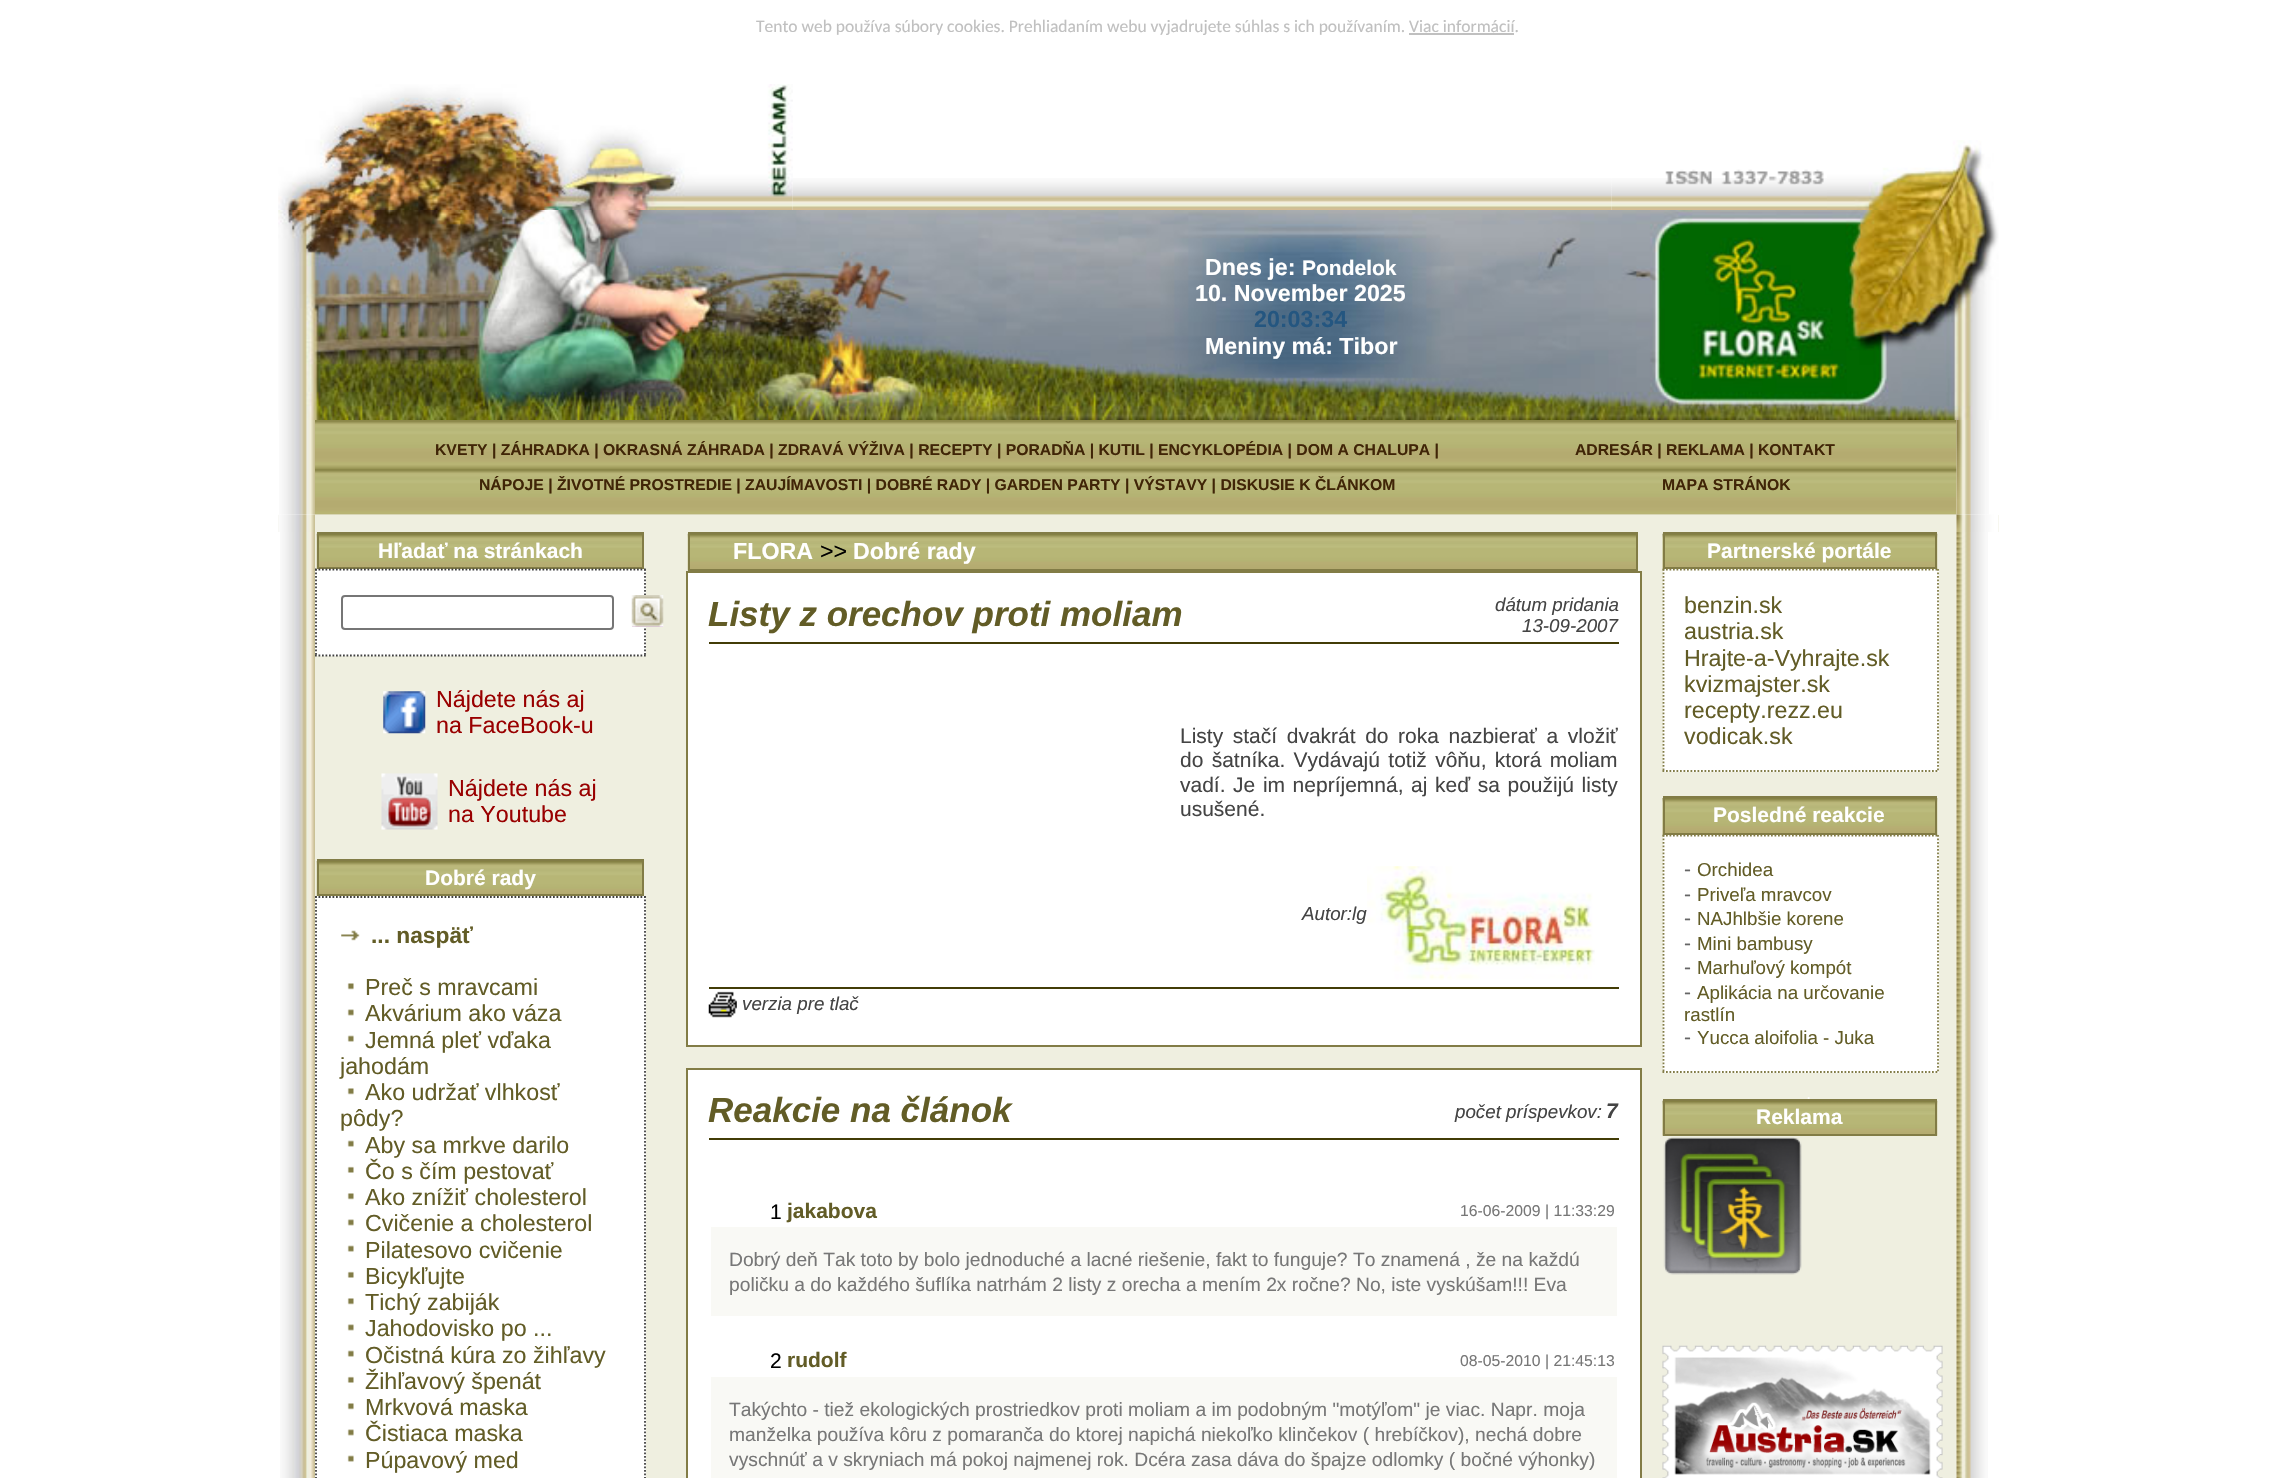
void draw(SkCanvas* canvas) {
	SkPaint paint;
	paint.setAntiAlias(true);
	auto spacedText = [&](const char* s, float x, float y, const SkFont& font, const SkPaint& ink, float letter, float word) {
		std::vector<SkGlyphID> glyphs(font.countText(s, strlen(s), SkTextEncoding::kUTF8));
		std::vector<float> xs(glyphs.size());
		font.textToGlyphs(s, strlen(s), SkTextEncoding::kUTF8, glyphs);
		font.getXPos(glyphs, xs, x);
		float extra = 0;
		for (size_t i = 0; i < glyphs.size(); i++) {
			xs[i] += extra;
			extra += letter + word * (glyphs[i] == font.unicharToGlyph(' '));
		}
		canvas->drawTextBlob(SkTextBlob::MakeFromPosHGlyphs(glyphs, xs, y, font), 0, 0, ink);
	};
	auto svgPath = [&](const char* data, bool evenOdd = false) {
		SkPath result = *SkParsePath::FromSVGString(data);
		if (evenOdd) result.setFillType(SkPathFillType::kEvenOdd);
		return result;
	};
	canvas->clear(0xffffffff);
	SkFont f1(fontMgr->matchFamilyStyle("Carlito", SkFontStyle::Normal()), 17.5);
	f1.setSubpixel(true);
	paint.setColor(0xffc0c0c0);
	canvas->drawString("Tento web používa súbory cookies. Prehliadaním webu vyjadrujete súhlas s ich používaním. Viac informácií.", 756, 32, f1, paint);
	canvas->drawRect(SkRect::MakeXYWH(1409, 33, 105, 2), paint);
	canvas->drawImageRect(SkImages::DeferredFromEncodedData(SkData::MakeFromFileName("img2.png")), SkRect::MakeXYWH(792, 178, 820, 32), SkSamplingOptions());
	canvas->drawImageRect(SkImages::DeferredFromEncodedData(SkData::MakeFromFileName("img1.png")), SkRect::MakeXYWH(278, 84, 515, 126), SkSamplingOptions());
	canvas->drawImageRect(SkImages::DeferredFromEncodedData(SkData::MakeFromFileName("img3.png")), SkRect::MakeXYWH(1611, 178, 216, 32), SkSamplingOptions());
	canvas->drawImageRect(SkImages::DeferredFromEncodedData(SkData::MakeFromFileName("img4.png")), SkRect::MakeXYWH(1665, 169, 159, 16), SkSamplingOptions());
	canvas->drawImageRect(SkImages::DeferredFromEncodedData(SkData::MakeFromFileName("img5.png")), SkRect::MakeXYWH(1827, 140, 167, 70), SkSamplingOptions());
	canvas->drawImageRect(SkImages::DeferredFromEncodedData(SkData::MakeFromFileName("img6.png")), SkRect::MakeXYWH(278, 210, 1721, 210), SkSamplingOptions());
	SkFont f2(fontMgr->matchFamilyStyle("Liberation Sans", SkFontStyle::Bold()), 23.25);
	f2.setSubpixel(true);
	paint.setColor(0xffffffff);
	canvas->drawString("Dnes je:", 1205, 275, f2, paint);
	SkFont f3(fontMgr->matchFamilyStyle("Liberation Sans", SkFontStyle::Bold()), 21);
	f3.setSubpixel(true);
	canvas->drawString("Pondelok", 1302, 275, f3, paint);
	canvas->drawString("10. November 2025", 1195, 301, f2, paint);
	paint.setColor(0xff245680);
	canvas->drawString("20:03:34", 1254, 327, f2, paint);
	paint.setColor(0xffffffff);
	canvas->drawString("Meniny má: Tibor", 1205, 354, f2, paint);
	canvas->drawImageRect(SkImages::DeferredFromEncodedData(SkData::MakeFromFileName("img7.png")), SkRect::MakeXYWH(279, 420, 36, 95), SkSamplingOptions());
	canvas->drawImageRect(SkImages::DeferredFromEncodedData(SkData::MakeFromFileName("img8.png")), SkRect::MakeXYWH(315, 420, 1642, 95), SkSamplingOptions());
	SkFont f4(fontMgr->matchFamilyStyle("Liberation Sans", SkFontStyle::Bold()), 15.75);
	f4.setSubpixel(true);
	paint.setColor(0xff402507);
	canvas->drawString("KVETY | ZÁHRADKA | OKRASNÁ ZÁHRADA | ZDRAVÁ VÝŽIVA | RECEPTY | PORADŇA | KUTIL | ENCYKLOPÉDIA | DOM A CHALUPA |", 435, 455, f4, paint);
	canvas->drawString("ADRESÁR | REKLAMA | KONTAKT", 1575, 455, f4, paint);
	canvas->drawString("NÁPOJE | ŽIVOTNÉ PROSTREDIE | ZAUJÍMAVOSTI | DOBRÉ RADY | GARDEN PARTY | VÝSTAVY | DISKUSIE K ČLÁNKOM", 479, 490, f4, paint);
	canvas->drawString("MAPA STRÁNOK", 1662, 490, f4, paint);
	canvas->drawImageRect(SkImages::DeferredFromEncodedData(SkData::MakeFromFileName("img9.png")), SkRect::MakeXYWH(1956, 420, 33, 95), SkSamplingOptions());
	paint.setColor(0xffefefe0);
	canvas->drawRect(SkRect::MakeXYWH(278, 515, 1721, 17), paint);
	canvas->drawImageRect(SkImages::DeferredFromEncodedData(SkData::MakeFromFileName("img10.png")), SkRect::MakeXYWH(278, 514, 37, 18), SkSamplingOptions());
	canvas->drawImageRect(SkImages::DeferredFromEncodedData(SkData::MakeFromFileName("img11.png")), SkRect::MakeXYWH(1956, 514, 43, 18), SkSamplingOptions());
	canvas->drawImageRect(SkImages::DeferredFromEncodedData(SkData::MakeFromFileName("img12.png")), SkRect::MakeXYWH(280, 532, 35, 946), SkSamplingOptions());
	paint.setColor(0xffcac196);
	canvas->drawRect(SkRect::MakeXYWH(314, 532, 1, 327), paint);
	paint.setColor(0xffefefe0);
	canvas->drawRect(SkRect::MakeXYWH(315, 532, 1642, 946), paint);
	canvas->drawImageRect(SkImages::DeferredFromEncodedData(SkData::MakeFromFileName("img13.png")), SkRect::MakeXYWH(316, 533, 326, 36), SkSamplingOptions());
	paint.setStroke(true);
	paint.setStrokeWidth(2);
	paint.setColor(0xff827c46);
	canvas->drawRect(SkRect::MakeXYWH(318, 533, 325, 35), paint);
	paint.setStroke(false);
	paint.setColor(0xffffffff);
	canvas->drawString("Hľadať na stránkach", 378, 558, f3, paint);
	canvas->drawRect(SkRect::MakeXYWH(315, 569, 331, 87), paint);
	paint.setStroke(true);
	paint.setStrokeWidth(1.8);
	paint.setColor(0xff404040);
	paint.setPathEffect(SkDashPathEffect::Make({{1.75f, 1.75f}}, 0));
	canvas->drawPath(svgPath("M315 569.5H646"), paint);
	paint.setPathEffect(nullptr);
	paint.setPathEffect(SkDashPathEffect::Make({{1.75f, 1.75f}}, 0));
	canvas->drawPath(svgPath("M645 569V656"), paint);
	paint.setPathEffect(nullptr);
	paint.setPathEffect(SkDashPathEffect::Make({{1.75f, 1.75f}}, 0));
	canvas->drawPath(svgPath("M315 655.5H646"), paint);
	paint.setPathEffect(nullptr);
	paint.setPathEffect(SkDashPathEffect::Make({{1.75f, 1.75f}}, 0));
	canvas->drawPath(svgPath("M316 569V656"), paint);
	paint.setPathEffect(nullptr);
	paint.setStrokeWidth(2);
	paint.setColor(0xff767676);
	canvas->drawRoundRect(SkRect::MakeXYWH(342, 596, 271, 33), 3, 3, paint);
	paint.setStroke(false);
	paint.setColor(0xffddbddd);
	canvas->drawRect(SkRect::MakeXYWH(632, 626, 31, 1), paint);
	canvas->drawImageRect(SkImages::DeferredFromEncodedData(SkData::MakeFromFileName("img14.png")), SkRect::MakeXYWH(631, 595, 33, 32), SkSamplingOptions());
	canvas->drawImageRect(SkImages::DeferredFromEncodedData(SkData::MakeFromFileName("img15.png")), SkRect::MakeXYWH(383, 691, 43, 43), SkSamplingOptions());
	SkFont f5(fontMgr->matchFamilyStyle("Liberation Sans", SkFontStyle::Normal()), 23.25);
	f5.setSubpixel(true);
	paint.setColor(0xff990000);
	canvas->drawString("Nájdete nás aj", 436, 707, f5, paint);
	canvas->drawString("na FaceBook-u", 436, 733, f5, paint);
	canvas->drawImageRect(SkImages::DeferredFromEncodedData(SkData::MakeFromFileName("img16.png")), SkRect::MakeXYWH(381, 773, 57, 57), SkSamplingOptions());
	canvas->drawString("Nájdete nás aj", 448, 796, f5, paint);
	canvas->drawString("na Youtube", 448, 822, f5, paint);
	paint.setColor(0xffcac196);
	canvas->drawRect(SkRect::MakeXYWH(314, 860, 1, 618), paint);
	canvas->drawImageRect(SkImages::DeferredFromEncodedData(SkData::MakeFromFileName("img17.png")), SkRect::MakeXYWH(316, 861, 326, 35), SkSamplingOptions());
	paint.setStroke(true);
	paint.setColor(0xff827c46);
	canvas->drawRect(SkRect::MakeXYWH(318, 860, 325, 35), paint);
	paint.setStroke(false);
	paint.setColor(0xffffffff);
	canvas->drawString("Dobré rady", 425, 885, f3, paint);
	canvas->drawRect(SkRect::MakeXYWH(315, 896, 331, 582), paint);
	paint.setStroke(true);
	paint.setStrokeWidth(1.8);
	paint.setColor(0xff404040);
	paint.setPathEffect(SkDashPathEffect::Make({{1.75f, 1.75f}}, 0));
	canvas->drawPath(svgPath("M315 897H646"), paint);
	paint.setPathEffect(nullptr);
	paint.setPathEffect(SkDashPathEffect::Make({{1.75f, 1.75f}}, 0));
	canvas->drawPath(svgPath("M645 896V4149"), paint);
	paint.setPathEffect(nullptr);
	paint.setPathEffect(SkDashPathEffect::Make({{1.75f, 1.75f}}, 0));
	canvas->drawPath(svgPath("M316 896V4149"), paint);
	paint.setPathEffect(nullptr);
	canvas->drawImageRect(SkImages::DeferredFromEncodedData(SkData::MakeFromFileName("img18.png")), SkRect::MakeXYWH(341, 930, 19, 11), SkSamplingOptions());
	SkFont f6(fontMgr->matchFamilyStyle("Liberation Sans", SkFontStyle::Bold()), 22.75);
	f6.setSubpixel(true);
	paint.setStroke(false);
	paint.setColor(0xff625c26);
	canvas->drawString("... naspäť", 371, 943, f6, paint);
	canvas->drawImageRect(SkImages::DeferredFromEncodedData(SkData::MakeFromFileName("img19.png")), SkRect::MakeXYWH(347, 983, 7, 7), SkSamplingOptions());
	canvas->drawString("Preč s mravcami", 365, 995, f5, paint);
	canvas->drawImageRect(SkImages::DeferredFromEncodedData(SkData::MakeFromFileName("img20.png")), SkRect::MakeXYWH(347, 1009, 7, 7), SkSamplingOptions());
	canvas->drawString("Akvárium ako váza", 365, 1021, f5, paint);
	canvas->drawImageRect(SkImages::DeferredFromEncodedData(SkData::MakeFromFileName("img21.png")), SkRect::MakeXYWH(347, 1035, 7, 7), SkSamplingOptions());
	canvas->drawString("Jemná pleť vďaka", 365, 1048, f5, paint);
	canvas->drawString("jahodám", 340, 1074, f5, paint);
	canvas->drawImageRect(SkImages::DeferredFromEncodedData(SkData::MakeFromFileName("img19.png")), SkRect::MakeXYWH(347, 1088, 7, 7), SkSamplingOptions());
	canvas->drawString("Ako udržať vlhkosť", 365, 1100, f5, paint);
	canvas->drawString("pôdy?", 340, 1126, f5, paint);
	canvas->drawImageRect(SkImages::DeferredFromEncodedData(SkData::MakeFromFileName("img21.png")), SkRect::MakeXYWH(347, 1140, 7, 7), SkSamplingOptions());
	canvas->drawString("Aby sa mrkve darilo", 365, 1153, f5, paint);
	canvas->drawImageRect(SkImages::DeferredFromEncodedData(SkData::MakeFromFileName("img22.png")), SkRect::MakeXYWH(347, 1166, 7, 7), SkSamplingOptions());
	canvas->drawString("Čo s čím pestovať", 365, 1179, f5, paint);
	canvas->drawImageRect(SkImages::DeferredFromEncodedData(SkData::MakeFromFileName("img19.png")), SkRect::MakeXYWH(347, 1193, 7, 7), SkSamplingOptions());
	canvas->drawString("Ako znížiť cholesterol", 365, 1205, f5, paint);
	canvas->drawImageRect(SkImages::DeferredFromEncodedData(SkData::MakeFromFileName("img20.png")), SkRect::MakeXYWH(347, 1219, 7, 7), SkSamplingOptions());
	canvas->drawString("Cvičenie a cholesterol", 365, 1231, f5, paint);
	canvas->drawImageRect(SkImages::DeferredFromEncodedData(SkData::MakeFromFileName("img21.png")), SkRect::MakeXYWH(347, 1245, 7, 7), SkSamplingOptions());
	canvas->drawString("Pilatesovo cvičenie", 365, 1258, f5, paint);
	canvas->drawImageRect(SkImages::DeferredFromEncodedData(SkData::MakeFromFileName("img22.png")), SkRect::MakeXYWH(347, 1271, 7, 7), SkSamplingOptions());
	canvas->drawString("Bicykľujte", 365, 1284, f5, paint);
	canvas->drawImageRect(SkImages::DeferredFromEncodedData(SkData::MakeFromFileName("img19.png")), SkRect::MakeXYWH(347, 1298, 7, 7), SkSamplingOptions());
	canvas->drawString("Tichý zabiják", 365, 1310, f5, paint);
	canvas->drawImageRect(SkImages::DeferredFromEncodedData(SkData::MakeFromFileName("img20.png")), SkRect::MakeXYWH(347, 1324, 7, 7), SkSamplingOptions());
	canvas->drawString("Jahodovisko po ...", 365, 1336, f5, paint);
	canvas->drawImageRect(SkImages::DeferredFromEncodedData(SkData::MakeFromFileName("img21.png")), SkRect::MakeXYWH(347, 1350, 7, 7), SkSamplingOptions());
	canvas->drawString("Očistná kúra zo žihľavy", 365, 1363, f5, paint);
	canvas->drawImageRect(SkImages::DeferredFromEncodedData(SkData::MakeFromFileName("img22.png")), SkRect::MakeXYWH(347, 1376, 7, 7), SkSamplingOptions());
	canvas->drawString("Žihľavový špenát", 365, 1389, f5, paint);
	canvas->drawImageRect(SkImages::DeferredFromEncodedData(SkData::MakeFromFileName("img19.png")), SkRect::MakeXYWH(347, 1403, 7, 7), SkSamplingOptions());
	canvas->drawString("Mrkvová maska", 365, 1415, f5, paint);
	canvas->drawImageRect(SkImages::DeferredFromEncodedData(SkData::MakeFromFileName("img20.png")), SkRect::MakeXYWH(347, 1429, 7, 7), SkSamplingOptions());
	canvas->drawString("Čistiaca maska", 365, 1441, f5, paint);
	canvas->drawImageRect(SkImages::DeferredFromEncodedData(SkData::MakeFromFileName("img21.png")), SkRect::MakeXYWH(347, 1455, 7, 7), SkSamplingOptions());
	canvas->drawString("Púpavový med", 365, 1468, f5, paint);
	canvas->drawImageRect(SkImages::DeferredFromEncodedData(SkData::MakeFromFileName("img23.png")), SkRect::MakeXYWH(687, 533, 949, 38), SkSamplingOptions());
	paint.setStroke(true);
	paint.setStrokeWidth(2);
	paint.setColor(0xff827c46);
	canvas->drawRect(SkRect::MakeXYWH(689, 533, 948, 37), paint);
	paint.setStroke(false);
	paint.setColor(0xffffffff);
	canvas->drawString("FLORA", 733, 559, f2, paint);
	paint.setColor(0xff000000);
	canvas->drawString(">>", 820, 559, f5, paint);
	paint.setColor(0xffffffff);
	canvas->drawString("Dobré rady", 853, 559, f2, paint);
	canvas->drawRect(SkRect::MakeXYWH(687, 572, 954, 474), paint);
	paint.setStroke(true);
	paint.setColor(0xff827c46);
	canvas->drawRect(SkRect::MakeXYWH(687, 572, 954, 474), paint);
	SkFont f7(fontMgr->matchFamilyStyle("Liberation Sans", SkFontStyle::BoldItalic()), 35);
	f7.setSubpixel(true);
	paint.setStroke(false);
	paint.setColor(0xff625c26);
	canvas->drawString("Listy z orechov proti moliam", 708, 626, f7, paint);
	SkFont f8(fontMgr->matchFamilyStyle("Liberation Sans", SkFontStyle::Italic()), 18.75);
	f8.setSubpixel(true);
	paint.setColor(0xff444444);
	canvas->drawString("dátum pridania", 1495, 611, f8, paint);
	canvas->drawString("13-09-2007", 1522, 632, f8, paint);
	paint.setColor(0xff423c06);
	canvas->drawRect(SkRect::MakeXYWH(709, 642, 910, 2), paint);
	SkFont f9(fontMgr->matchFamilyStyle("Liberation Sans", SkFontStyle::Normal()), 21);
	f9.setSubpixel(true);
	paint.setColor(0xff444444);
	spacedText("Listy stačí dvakrát do roka nazbierať a vložiť", 1180, 743, f9, paint, 0, 3.75);
	spacedText("do šatníka. Vydávajú totiž vôňu, ktorá moliam", 1180, 767, f9, paint, 0, 2.5);
	spacedText("vadí. Je im nepríjemná, aj keď sa použijú listy", 1180, 792, f9, paint, 0, 1.75);
	canvas->drawString("usušené.", 1180, 816, f9, paint);
	canvas->drawString("Autor:lg", 1302, 920, f8, paint);
	canvas->drawImageRect(SkImages::DeferredFromEncodedData(SkData::MakeFromFileName("img24.png")), SkRect::MakeXYWH(1367, 866, 228, 114), SkSamplingOptions());
	paint.setColor(0xff423c06);
	canvas->drawRect(SkRect::MakeXYWH(709, 987, 910, 2), paint);
	canvas->drawImageRect(SkImages::DeferredFromEncodedData(SkData::MakeFromFileName("img25.png")), SkRect::MakeXYWH(708, 991, 29, 27), SkSamplingOptions());
	paint.setColor(0xff444444);
	canvas->drawString("verzia pre tlač", 742, 1010, f8, paint);
	paint.setColor(0xffffffff);
	canvas->drawRect(SkRect::MakeXYWH(687, 1069, 954, 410), paint);
	paint.setStroke(true);
	paint.setColor(0xff827c46);
	canvas->drawRect(SkRect::MakeXYWH(687, 1069, 954, 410), paint);
	paint.setStroke(false);
	paint.setColor(0xff625c26);
	canvas->drawString("Reakcie na článok", 708, 1122, f7, paint);
	paint.setColor(0xff444444);
	canvas->drawString("počet príspevkov:", 1455, 1118, f8, paint);
	SkFont f10(fontMgr->matchFamilyStyle("Liberation Sans", SkFontStyle::BoldItalic()), 21);
	f10.setSubpixel(true);
	canvas->drawString("7", 1606, 1118, f10, paint);
	paint.setColor(0xff423c06);
	canvas->drawRect(SkRect::MakeXYWH(709, 1138, 910, 2), paint);
	paint.setColor(0xff000000);
	canvas->drawString("1", 770, 1219, f9, paint);
	paint.setColor(0xff625c26);
	canvas->drawString("jakabova", 787, 1218, f3, paint);
	SkFont f11(fontMgr->matchFamilyStyle("Liberation Sans", SkFontStyle::Normal()), 15.75);
	f11.setSubpixel(true);
	paint.setColor(0xff777777);
	canvas->drawString("16-06-2009 | 11:33:29", 1460, 1216, f11, paint);
	paint.setColor(0xfff9f9f5);
	canvas->drawRect(SkRect::MakeXYWH(711, 1227, 906, 89), paint);
	SkFont f12(fontMgr->matchFamilyStyle("Liberation Sans", SkFontStyle::Normal()), 19.25);
	f12.setSubpixel(true);
	paint.setColor(0xff777777);
	canvas->drawString("Dobrý deň Tak toto by bolo jednoduché a lacné riešenie, fakt to funguje? To znamená , že na každú", 729, 1266, f12, paint);
	canvas->drawString("poličku a do každého šuflíka natrhám 2 listy z orecha a mením 2x ročne? No, iste vyskúšam!!! Eva", 729, 1291, f12, paint);
	paint.setColor(0xff000000);
	canvas->drawString("2", 770, 1368, f9, paint);
	paint.setColor(0xff625c26);
	canvas->drawString("rudolf", 787, 1367, f3, paint);
	paint.setColor(0xff777777);
	canvas->drawString("08-05-2010 | 21:45:13", 1460, 1366, f11, paint);
	paint.setColor(0xfff9f9f5);
	canvas->drawRect(SkRect::MakeXYWH(711, 1377, 906, 101), paint);
	paint.setColor(0xff777777);
	canvas->drawString("Takýchto - tiež ekologických prostriedkov proti moliam a im podobným \"motýľom\" je viac. Napr. moja", 729, 1416, f12, paint);
	canvas->drawString("manželka používa kôru z pomaranča do ktorej napichá niekoľko klinčekov ( hrebíčkov), nechá dobre", 729, 1441, f12, paint);
	canvas->drawString("vyschnúť a v skryniach má pokoj najmenej rok. Dcéra zasa dáva do špajze odlomky ( bočné výhonky)", 729, 1466, f12, paint);
	canvas->drawImageRect(SkImages::DeferredFromEncodedData(SkData::MakeFromFileName("img26.png")), SkRect::MakeXYWH(1662, 533, 276, 36), SkSamplingOptions());
	paint.setStroke(true);
	paint.setColor(0xff827c46);
	canvas->drawRect(SkRect::MakeXYWH(1664, 533, 272, 35), paint);
	paint.setStroke(false);
	paint.setColor(0xffffffff);
	canvas->drawString("Partnerské portále", 1707, 558, f3, paint);
	canvas->drawRect(SkRect::MakeXYWH(1663, 569, 276, 203), paint);
	paint.setStroke(true);
	paint.setStrokeWidth(1.8);
	paint.setColor(0xff827c46);
	paint.setPathEffect(SkDashPathEffect::Make({{1.75f, 1.75f}}, 0));
	canvas->drawPath(svgPath("M1662.5 569.5H1939"), paint);
	paint.setPathEffect(nullptr);
	paint.setPathEffect(SkDashPathEffect::Make({{1.75f, 1.75f}}, 0));
	canvas->drawPath(svgPath("M1938 569V772"), paint);
	paint.setPathEffect(nullptr);
	paint.setPathEffect(SkDashPathEffect::Make({{1.75f, 1.75f}}, 0));
	canvas->drawPath(svgPath("M1662.5 771H1939"), paint);
	paint.setPathEffect(nullptr);
	paint.setPathEffect(SkDashPathEffect::Make({{1.75f, 1.75f}}, 0));
	canvas->drawPath(svgPath("M1663.5 569V772"), paint);
	paint.setPathEffect(nullptr);
	paint.setStroke(false);
	paint.setColor(0xff625c26);
	canvas->drawString("benzin.sk", 1684, 613, f5, paint);
	canvas->drawString("austria.sk", 1684, 639, f5, paint);
	canvas->drawString("Hrajte-a-Vyhrajte.sk", 1684, 666, f5, paint);
	canvas->drawString("kvizmajster.sk", 1684, 692, f5, paint);
	canvas->drawString("recepty.rezz.eu", 1684, 718, f5, paint);
	canvas->drawString("vodicak.sk", 1684, 744, f5, paint);
	canvas->drawImageRect(SkImages::DeferredFromEncodedData(SkData::MakeFromFileName("img27.png")), SkRect::MakeXYWH(1662, 798, 276, 37), SkSamplingOptions());
	paint.setStroke(true);
	paint.setStrokeWidth(2);
	paint.setColor(0xff827c46);
	canvas->drawRect(SkRect::MakeXYWH(1664, 797, 272, 37), paint);
	paint.setStroke(false);
	paint.setColor(0xffffffff);
	canvas->drawString("Posledné reakcie", 1713, 822, f3, paint);
	canvas->drawRect(SkRect::MakeXYWH(1663, 835, 276, 238), paint);
	paint.setStroke(true);
	paint.setStrokeWidth(1.8);
	paint.setColor(0xff827c46);
	paint.setPathEffect(SkDashPathEffect::Make({{1.75f, 1.75f}}, 0));
	canvas->drawPath(svgPath("M1662.5 835.5H1939"), paint);
	paint.setPathEffect(nullptr);
	paint.setPathEffect(SkDashPathEffect::Make({{1.75f, 1.75f}}, 0));
	canvas->drawPath(svgPath("M1938 835V1073"), paint);
	paint.setPathEffect(nullptr);
	paint.setPathEffect(SkDashPathEffect::Make({{1.75f, 1.75f}}, 0));
	canvas->drawPath(svgPath("M1662.5 1072H1939"), paint);
	paint.setPathEffect(nullptr);
	paint.setPathEffect(SkDashPathEffect::Make({{1.75f, 1.75f}}, 0));
	canvas->drawPath(svgPath("M1663.5 835V1073"), paint);
	paint.setPathEffect(nullptr);
	paint.setStroke(false);
	paint.setColor(0xff666666);
	canvas->drawString("-", 1684, 876, f9, paint);
	SkFont f13(fontMgr->matchFamilyStyle("Liberation Sans", SkFontStyle::Normal()), 18.75);
	f13.setSubpixel(true);
	paint.setColor(0xff625c26);
	canvas->drawString("Orchidea", 1697, 876, f13, paint);
	paint.setColor(0xff666666);
	canvas->drawString("-", 1684, 901, f9, paint);
	paint.setColor(0xff625c26);
	canvas->drawString("Priveľa mravcov", 1697, 901, f13, paint);
	paint.setColor(0xff666666);
	canvas->drawString("-", 1684, 925, f9, paint);
	paint.setColor(0xff625c26);
	canvas->drawString("NAJhlbšie korene", 1697, 925, f13, paint);
	paint.setColor(0xff666666);
	canvas->drawString("-", 1684, 950, f9, paint);
	paint.setColor(0xff625c26);
	canvas->drawString("Mini bambusy", 1697, 950, f13, paint);
	paint.setColor(0xff666666);
	canvas->drawString("-", 1684, 974, f9, paint);
	paint.setColor(0xff625c26);
	canvas->drawString("Marhuľový kompót", 1697, 974, f13, paint);
	paint.setColor(0xff666666);
	canvas->drawString("-", 1684, 999, f9, paint);
	paint.setColor(0xff625c26);
	canvas->drawString("Aplikácia na určovanie", 1697, 999, f13, paint);
	canvas->drawString("rastlín", 1684, 1021, f13, paint);
	paint.setColor(0xff666666);
	canvas->drawString("-", 1684, 1044, f9, paint);
	paint.setColor(0xff625c26);
	canvas->drawString("Yucca aloifolia - Juka", 1697, 1044, f13, paint);
	canvas->drawImageRect(SkImages::DeferredFromEncodedData(SkData::MakeFromFileName("img28.png")), SkRect::MakeXYWH(1807, 1097, 3, 2), SkSamplingOptions());
	canvas->drawImageRect(SkImages::DeferredFromEncodedData(SkData::MakeFromFileName("img29.png")), SkRect::MakeXYWH(1662, 1100, 276, 36), SkSamplingOptions());
	paint.setStroke(true);
	paint.setStrokeWidth(2);
	paint.setColor(0xff827c46);
	canvas->drawRect(SkRect::MakeXYWH(1664, 1100, 272, 35), paint);
	paint.setStroke(false);
	paint.setColor(0xffffffff);
	canvas->drawString("Reklama", 1756, 1124, f3, paint);
	canvas->drawImageRect(SkImages::DeferredFromEncodedData(SkData::MakeFromFileName("img30.png")), SkRect::MakeXYWH(1663, 1137, 139, 138), SkSamplingOptions());
	canvas->drawImageRect(SkImages::DeferredFromEncodedData(SkData::MakeFromFileName("img31.png")), SkRect::MakeXYWH(1662, 1345, 281, 133), SkSamplingOptions());
	canvas->drawImageRect(SkImages::DeferredFromEncodedData(SkData::MakeFromFileName("img32.png")), SkRect::MakeXYWH(1956, 532, 32, 946), SkSamplingOptions());
}
